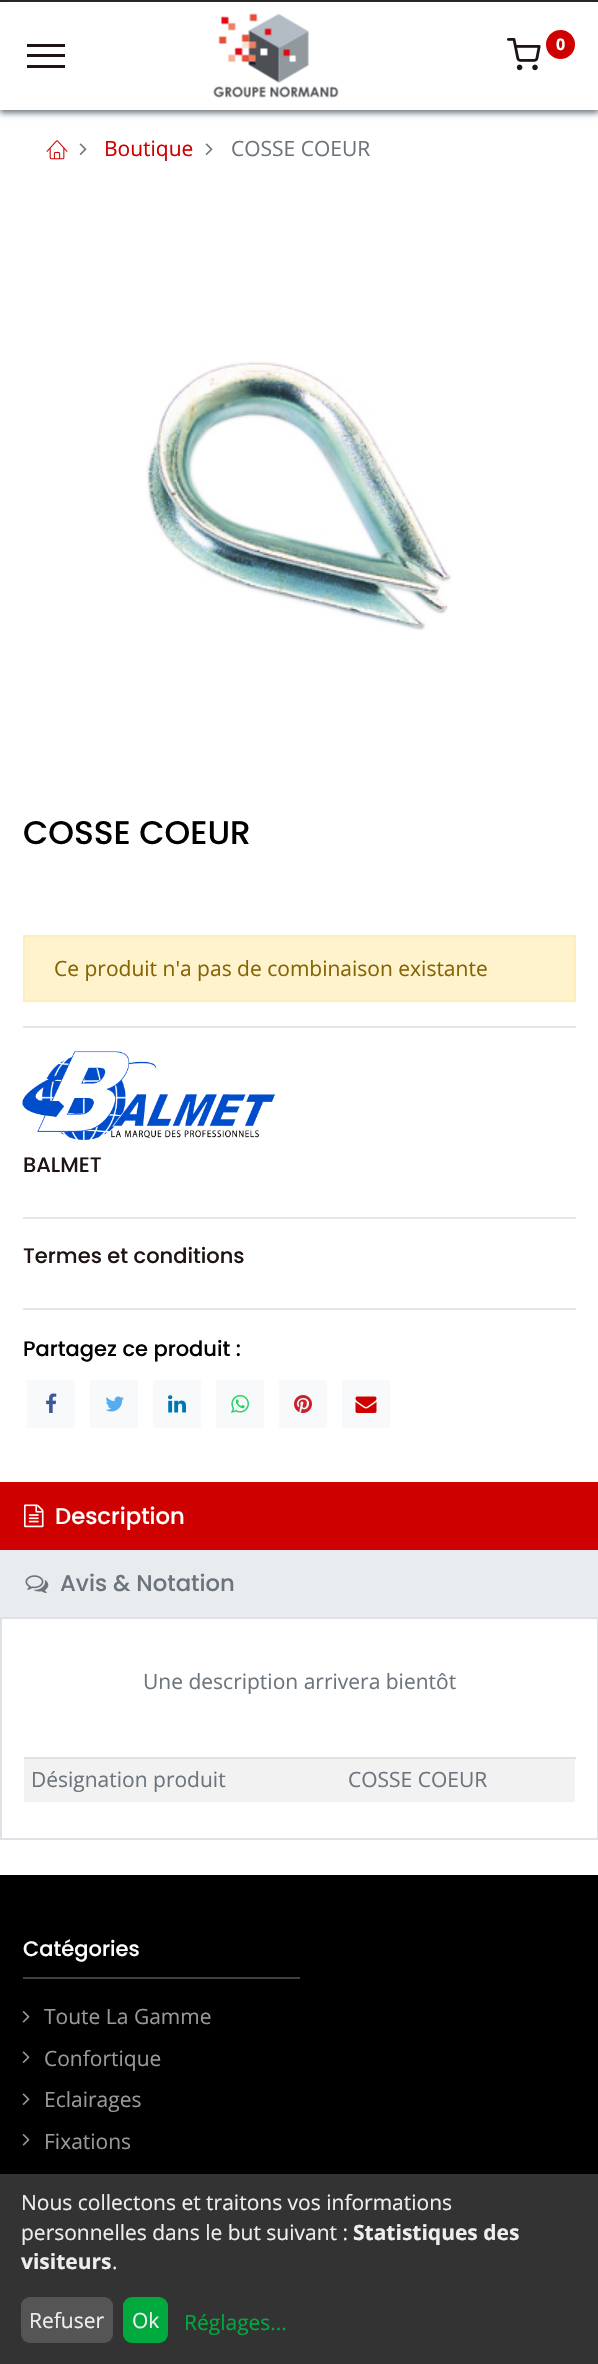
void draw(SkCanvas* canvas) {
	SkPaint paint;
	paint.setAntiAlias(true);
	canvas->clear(0xffffffff);
	paint.setColor(0xff1f1f1f);
	canvas->drawRect(SkRect::MakeXYWH(0, 0, 598, 2), paint);
	paint.setColor(0xff6c757d);
	paint.setMaskFilter(SkMaskFilter::MakeBlur(kNormal_SkBlurStyle, 3));
	canvas->drawRect(SkRect::MakeXYWH(0, 5, 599, 108), paint);
	paint.setMaskFilter(nullptr);
	paint.setColor(0xffffffff);
	canvas->drawRect(SkRect::MakeXYWH(0, 2, 598, 108), paint);
	paint.setColor(0xff1f1414);
	canvas->drawRect(SkRect::MakeXYWH(27, 44, 38, 3), paint);
	canvas->drawRect(SkRect::MakeXYWH(27, 54, 38, 3), paint);
	canvas->drawRect(SkRect::MakeXYWH(27, 65, 38, 3), paint);
	canvas->drawImageRect(SkImages::DeferredFromEncodedData(SkData::MakeFromFileName("img1.png")), SkRect::MakeXYWH(213, 13, 126, 85), SkSamplingOptions());
	canvas->drawImageRect(SkImages::DeferredFromEncodedData(SkData::MakeFromFileName("img2.png")), SkRect::MakeXYWH(507, 38, 34, 33), SkSamplingOptions());
	paint.setColor(0xffce0000);
	canvas->drawCircle(560.5, 44.5, 14.5, paint);
	SkFont f1(fontMgr->matchFamilyStyle("Open Sans", SkFontStyle::Bold()), 16);
	f1.setSubpixel(true);
	paint.setColor(0xffffffff);
	canvas->drawString("0", 556, 50, f1, paint);
	canvas->drawImageRect(SkImages::DeferredFromEncodedData(SkData::MakeFromFileName("img3.png")), SkRect::MakeXYWH(46, 140, 22, 20), SkSamplingOptions());
	canvas->drawImageRect(SkImages::DeferredFromEncodedData(SkData::MakeFromFileName("img4.png")), SkRect::MakeXYWH(79, 143, 8, 12), SkSamplingOptions());
	SkFont f2(fontMgr->matchFamilyStyle("Open Sans", SkFontStyle::Normal()), 21);
	f2.setSubpixel(true);
	paint.setColor(0xffce0000);
	canvas->drawString("Boutique", 104, 156, f2, paint);
	canvas->drawImageRect(SkImages::DeferredFromEncodedData(SkData::MakeFromFileName("img4.png")), SkRect::MakeXYWH(205, 143, 8, 12), SkSamplingOptions());
	paint.setColor(0xff6c757d);
	canvas->drawString("COSSE COEUR", 231, 156, f2, paint);
	canvas->drawImageRect(SkImages::DeferredFromEncodedData(SkData::MakeFromFileName("img5.png")), SkRect::MakeXYWH(146, 361, 306, 270), SkSamplingOptions());
	SkFont f3(fontMgr->matchFamilyStyle("Poppins", SkFontStyle(500, SkFontStyle::kNormal_Width, SkFontStyle::kUpright_Slant)), 32.75);
	f3.setSubpixel(true);
	paint.setColor(0xff000000);
	canvas->drawString("COSSE COEUR", 23, 844, f3, paint);
	paint.setColor(0xfffff3cd);
	canvas->drawRect(SkRect::MakeXYWH(24, 936, 551, 65), paint);
	paint.setStroke(true);
	paint.setStrokeWidth(2);
	paint.setColor(0xffffeeba);
	canvas->drawRect(SkRect::MakeXYWH(24, 936, 551, 65), paint);
	paint.setStroke(false);
	paint.setColor(0xff856404);
	canvas->drawString("Ce produit n'a pas de combinaison existante", 54, 976, f2, paint);
	paint.setColor(0xffe6e6e6);
	canvas->drawRect(SkRect::MakeXYWH(23, 1026, 553, 2), paint);
	canvas->drawImageRect(SkImages::DeferredFromEncodedData(SkData::MakeFromFileName("img6.png")), SkRect::MakeXYWH(22, 1051, 254, 89), SkSamplingOptions());
	SkFont f4(fontMgr->matchFamilyStyle("Poppins", SkFontStyle(500, SkFontStyle::kNormal_Width, SkFontStyle::kUpright_Slant)), 21);
	f4.setSubpixel(true);
	paint.setColor(0xff1f1414);
	canvas->drawString("BALMET", 23, 1172, f4, paint);
	paint.setColor(0xffe6e6e6);
	canvas->drawRect(SkRect::MakeXYWH(23, 1217, 553, 2), paint);
	paint.setColor(0xff1f1414);
	canvas->drawString("Termes et conditions", 23, 1263, f4, paint);
	paint.setColor(0xffe6e6e6);
	canvas->drawRect(SkRect::MakeXYWH(23, 1308, 553, 2), paint);
	paint.setColor(0xff000000);
	canvas->drawString("Partagez ce produit :", 23, 1356, f4, paint);
	paint.setColor(0xfff8f9fa);
	canvas->drawRect(SkRect::MakeXYWH(27, 1380, 48, 48), paint);
	canvas->drawImageRect(SkImages::DeferredFromEncodedData(SkData::MakeFromFileName("img7.png")), SkRect::MakeXYWH(46, 1393, 11, 20), SkSamplingOptions());
	canvas->drawRect(SkRect::MakeXYWH(90, 1380, 48, 48), paint);
	canvas->drawImageRect(SkImages::DeferredFromEncodedData(SkData::MakeFromFileName("img8.png")), SkRect::MakeXYWH(105, 1396, 19, 16), SkSamplingOptions());
	canvas->drawRect(SkRect::MakeXYWH(153, 1380, 48, 48), paint);
	canvas->drawImageRect(SkImages::DeferredFromEncodedData(SkData::MakeFromFileName("img9.png")), SkRect::MakeXYWH(168, 1395, 18, 18), SkSamplingOptions());
	canvas->drawRect(SkRect::MakeXYWH(216, 1380, 48, 48), paint);
	canvas->drawImageRect(SkImages::DeferredFromEncodedData(SkData::MakeFromFileName("img10.png")), SkRect::MakeXYWH(231, 1394, 18, 19), SkSamplingOptions());
	canvas->drawRect(SkRect::MakeXYWH(279, 1380, 48, 48), paint);
	canvas->drawImageRect(SkImages::DeferredFromEncodedData(SkData::MakeFromFileName("img11.png")), SkRect::MakeXYWH(294, 1395, 18, 18), SkSamplingOptions());
	canvas->drawRect(SkRect::MakeXYWH(342, 1380, 48, 48), paint);
	canvas->drawImageRect(SkImages::DeferredFromEncodedData(SkData::MakeFromFileName("img12.png")), SkRect::MakeXYWH(355, 1396, 22, 17), SkSamplingOptions());
	paint.setColor(0xffe9ecef);
	canvas->drawRect(SkRect::MakeXYWH(0, 1550, 598, 67), paint);
	paint.setColor(0xffdee2e6);
	canvas->drawRect(SkRect::MakeXYWH(0, 1617, 598, 2), paint);
	paint.setColor(0xffce0000);
	canvas->drawRect(SkRect::MakeXYWH(0, 1482, 598, 68), paint);
	canvas->drawImageRect(SkImages::DeferredFromEncodedData(SkData::MakeFromFileName("img13.png")), SkRect::MakeXYWH(24, 1504, 20, 24), SkSamplingOptions());
	SkFont f5(fontMgr->matchFamilyStyle("Poppins", SkFontStyle(500, SkFontStyle::kNormal_Width, SkFontStyle::kUpright_Slant)), 22.75);
	f5.setSubpixel(true);
	paint.setColor(0xffffffff);
	canvas->drawString("Description", 55, 1524, f5, paint);
	canvas->drawImageRect(SkImages::DeferredFromEncodedData(SkData::MakeFromFileName("img14.png")), SkRect::MakeXYWH(25, 1575, 24, 19), SkSamplingOptions());
	paint.setColor(0xff6c757d);
	canvas->drawString("Avis & Notation", 60, 1591, f5, paint);
	paint.setColor(0xffdee2e6);
	canvas->drawRect(SkRect::MakeXYWH(597, 1619, 1, 220), paint);
	canvas->drawRect(SkRect::MakeXYWH(0, 1838, 598, 2), paint);
	canvas->drawRect(SkRect::MakeXYWH(0, 1619, 2, 220), paint);
	paint.setColor(0xff6c757d);
	canvas->drawString("Une description arrivera bientôt", 143, 1689, f2, paint);
	paint.setColor(0xfff2f2f2);
	canvas->drawRect(SkRect::MakeXYWH(24, 1759, 551, 43), paint);
	paint.setColor(0xff6c757d);
	canvas->drawString("Désignation produit", 31, 1787, f2, paint);
	paint.setColor(0xffdee2e6);
	canvas->drawRect(SkRect::MakeXYWH(24, 1757, 552, 2), paint);
	paint.setColor(0xff6c757d);
	canvas->drawString("COSSE COEUR", 348, 1787, f2, paint);
	paint.setColor(0xff000000);
	canvas->drawRect(SkRect::MakeXYWH(0, 1875, 598, 299), paint);
	paint.setColor(0xffffffff);
	canvas->drawString("Catégories", 23, 1956, f4, paint);
	paint.setColor(0xff404040);
	canvas->drawRect(SkRect::MakeXYWH(23, 1977, 277, 2), paint);
	canvas->drawImageRect(SkImages::DeferredFromEncodedData(SkData::MakeFromFileName("img15.png")), SkRect::MakeXYWH(22, 2011, 8, 12), SkSamplingOptions());
	paint.setColor(0xff999999);
	canvas->drawString("Toute La Gamme", 44, 2024, f2, paint);
	canvas->drawImageRect(SkImages::DeferredFromEncodedData(SkData::MakeFromFileName("img16.png")), SkRect::MakeXYWH(22, 2051, 8, 12), SkSamplingOptions());
	canvas->drawString("Confortique", 44, 2066, f2, paint);
	canvas->drawImageRect(SkImages::DeferredFromEncodedData(SkData::MakeFromFileName("img16.png")), SkRect::MakeXYWH(22, 2093, 8, 12), SkSamplingOptions());
	canvas->drawString("Eclairages", 44, 2107, f2, paint);
	canvas->drawImageRect(SkImages::DeferredFromEncodedData(SkData::MakeFromFileName("img15.png")), SkRect::MakeXYWH(22, 2134, 8, 12), SkSamplingOptions());
	canvas->drawString("Fixations", 44, 2149, f2, paint);
	paint.setColor(0xff333333);
	canvas->drawRect(SkRect::MakeXYWH(0, 2174, 598, 190), paint);
	paint.setColor(0xffeeeeee);
	canvas->drawString("Nous collectons et traitons vos informations", 21, 2210, f2, paint);
	canvas->drawString("personnelles dans le but suivant :", 21, 2240, f2, paint);
	SkFont f6(fontMgr->matchFamilyStyle("Open Sans", SkFontStyle::Bold()), 21);
	f6.setSubpixel(true);
	canvas->drawString("Statistiques des", 353, 2240, f6, paint);
	canvas->drawString("visiteurs", 21, 2269, f6, paint);
	canvas->drawString(".", 112, 2269, f2, paint);
	paint.setColor(0xff555555);
	canvas->drawRoundRect(SkRect::MakeXYWH(21, 2297, 92, 46), 9, 9, paint);
	paint.setColor(0xffeeeeee);
	canvas->drawString("Refuser", 29, 2328, f2, paint);
	paint.setColor(0xff00aa3e);
	canvas->drawRoundRect(SkRect::MakeXYWH(123, 2297, 45, 46), 9, 9, paint);
	paint.setColor(0xffeeeeee);
	canvas->drawString("Ok", 132, 2328, f2, paint);
	paint.setColor(0xff00aa3e);
	canvas->drawString("Réglages...", 184, 2330, f2, paint);
}
